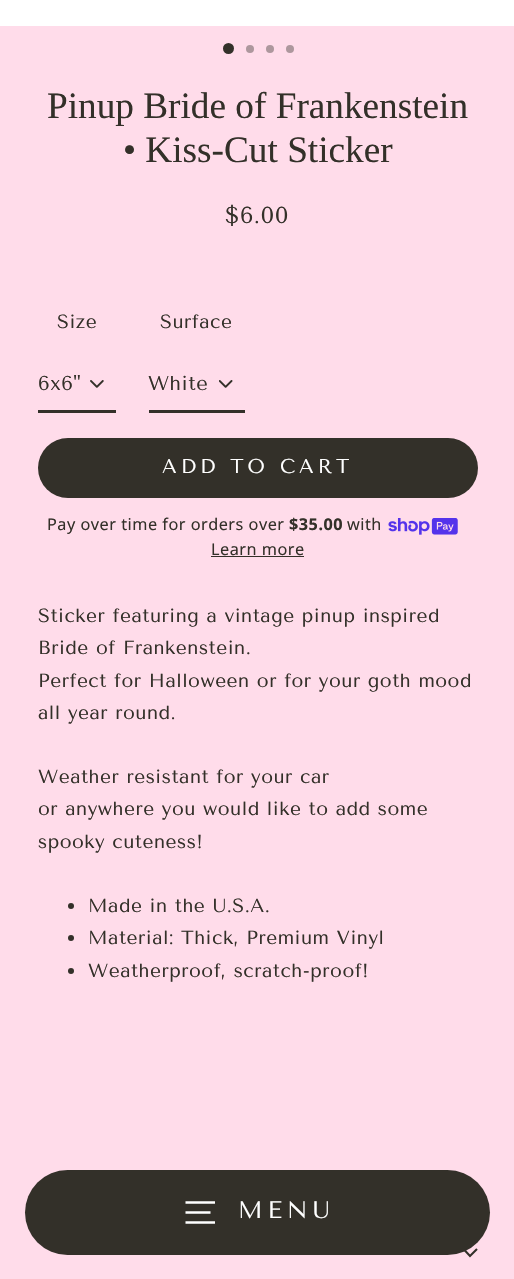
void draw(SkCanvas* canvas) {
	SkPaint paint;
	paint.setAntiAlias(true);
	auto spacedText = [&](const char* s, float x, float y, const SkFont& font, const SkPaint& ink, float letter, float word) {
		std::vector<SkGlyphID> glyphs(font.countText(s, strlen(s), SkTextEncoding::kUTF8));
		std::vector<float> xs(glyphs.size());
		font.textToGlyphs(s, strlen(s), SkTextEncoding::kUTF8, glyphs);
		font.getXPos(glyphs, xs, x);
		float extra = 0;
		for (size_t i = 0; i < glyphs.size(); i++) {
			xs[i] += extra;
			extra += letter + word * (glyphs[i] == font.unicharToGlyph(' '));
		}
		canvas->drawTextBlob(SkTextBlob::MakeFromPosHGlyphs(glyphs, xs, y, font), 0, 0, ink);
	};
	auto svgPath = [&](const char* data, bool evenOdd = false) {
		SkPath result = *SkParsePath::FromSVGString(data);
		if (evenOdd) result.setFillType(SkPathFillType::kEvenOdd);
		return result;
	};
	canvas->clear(0xffffdcea);
	paint.setColor(0xffffffff);
	canvas->drawRect(SkRect::MakeXYWH(0, 0, 514, 26), paint);
	paint.setColor(0xff333029);
	canvas->drawCircle(228.5, 48.5, 5.5, paint);
	paint.setColor(0xffad979d);
	canvas->drawCircle(250, 49, 4, paint);
	canvas->drawCircle(270, 49, 4, paint);
	canvas->drawCircle(290, 49, 4, paint);
	SkFont f1(fontMgr->matchFamilyStyle("Liberation Serif", SkFontStyle::Normal()), 37.25);
	f1.setSubpixel(true);
	paint.setColor(0xff333029);
	canvas->drawString("Pinup Bride of Frankenstein", 47, 118, f1, paint);
	canvas->drawString("• Kiss-Cut Sticker", 123, 162, f1, paint);
	SkFont f2(fontMgr->matchFamilyStyle("Tenor Sans", SkFontStyle::Normal()), 23);
	f2.setSubpixel(true);
	spacedText("$6.00", 225, 223, f2, paint, 0.5, 0);
	SkFont f3(fontMgr->matchFamilyStyle("Tenor Sans", SkFontStyle::Normal()), 19.1);
	f3.setSubpixel(true);
	spacedText("Size", 57, 328, f3, paint, 0.5, 0);
	canvas->drawImageRect(SkImages::DeferredFromEncodedData(SkData::MakeFromFileName("img1.png")), SkRect::MakeXYWH(90, 380, 14, 8), SkSamplingOptions());
	canvas->drawRect(SkRect::MakeXYWH(38, 410, 78, 3), paint);
	SkFont f4(fontMgr->matchFamilyStyle("Tenor Sans", SkFontStyle::Normal()), 20);
	f4.setSubpixel(true);
	spacedText("6x6\"", 38, 390, f4, paint, 0.5, 0);
	spacedText("Surface", 160, 328, f3, paint, 0.5, 0);
	canvas->drawImageRect(SkImages::DeferredFromEncodedData(SkData::MakeFromFileName("img2.png")), SkRect::MakeXYWH(219, 380, 14, 8), SkSamplingOptions());
	canvas->drawRect(SkRect::MakeXYWH(149, 410, 96, 3), paint);
	spacedText("White", 148, 390, f4, paint, 0.5, 0);
	canvas->drawRoundRect(SkRect::MakeXYWH(38, 438, 440, 60), 30, 30, paint);
	paint.setColor(0xffffffff);
	spacedText("ADD TO CART", 162, 473, f4, paint, 4, 0);
	SkFont f5(fontMgr->matchFamilyStyle("Noto Sans", SkFontStyle::Normal()), 16.25);
	f5.setSubpixel(true);
	paint.setColor(0xff333029);
	spacedText("Pay over time for orders over", 47, 530, f5, paint, 0.5, 0);
	SkFont f6(fontMgr->matchFamilyStyle("Noto Sans", SkFontStyle::Bold()), 16.25);
	f6.setSubpixel(true);
	spacedText("$35.00", 289, 530, f6, paint, 0.5, 0);
	spacedText("with", 347, 530, f5, paint, 0.5, 0);
	canvas->drawImageRect(SkImages::DeferredFromEncodedData(SkData::MakeFromFileName("img3.png")), SkRect::MakeXYWH(388, 518, 70, 17), SkSamplingOptions());
	spacedText("Learn more", 211, 555, f5, paint, 0.5, 0);
	canvas->drawRect(SkRect::MakeXYWH(211, 556, 93, 1), paint);
	spacedText("Sticker featuring a vintage pinup inspired", 38, 622, f3, paint, 0.5, 0);
	spacedText("Bride of Frankenstein.", 38, 654, f3, paint, 0.5, 0);
	spacedText("Perfect for Halloween or for your goth mood", 38, 687, f3, paint, 0.5, 0);
	spacedText("all year round.", 38, 719, f3, paint, 0.5, 0);
	spacedText("Weather resistant for your car", 38, 783, f3, paint, 0.5, 0);
	spacedText("or anywhere you would like to add some", 38, 815, f3, paint, 0.5, 0);
	spacedText("spooky cuteness!", 38, 848, f3, paint, 0.5, 0);
	canvas->drawCircle(71, 906, 3, paint);
	spacedText("Made in the U.S.A.", 88, 912, f3, paint, 0.5, 0);
	canvas->drawCircle(71, 938, 3, paint);
	spacedText("Material: Thick, Premium Vinyl", 88, 944, f3, paint, 0.5, 0);
	canvas->drawCircle(71, 971, 3, paint);
	spacedText("Weatherproof, scratch-proof!", 88, 977, f3, paint, 0.5, 0);
	paint.setStroke(true);
	paint.setStrokeWidth(2.1);
	canvas->drawPath(svgPath("M463.5 1249L470 1256L477 1249"), paint);
	paint.setStroke(false);
	canvas->drawRoundRect(SkRect::MakeXYWH(25, 1170, 465, 85), 42.5, 42.5, paint);
	paint.setStroke(true);
	paint.setStrokeWidth(2.3);
	paint.setColor(0xffffffff);
	canvas->drawPath(svgPath("M185.5 1202.5H215M185.5 1212.5H210.5M185.5 1222.5H215"), paint);
	SkFont f7(fontMgr->matchFamilyStyle("Tenor Sans", SkFontStyle::Normal()), 24);
	f7.setSubpixel(true);
	paint.setStroke(false);
	spacedText("MENU", 238, 1218, f7, paint, 5, 0);
}
